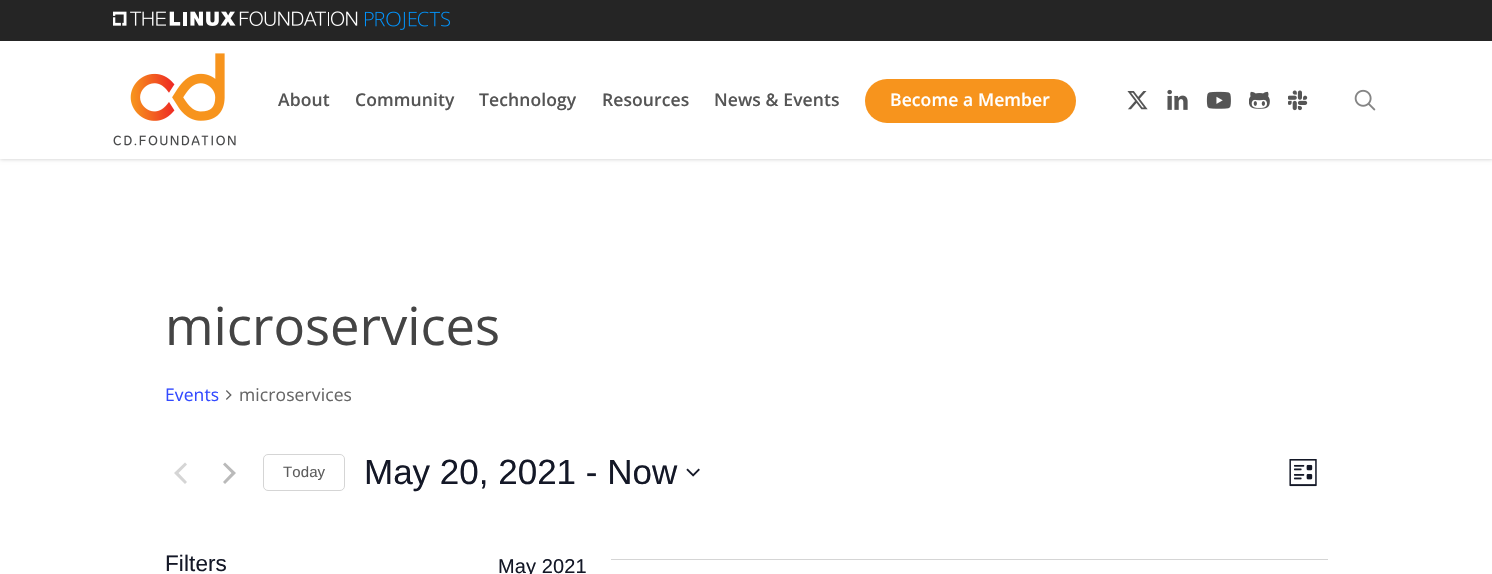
void draw(SkCanvas* canvas) {
	SkPaint paint;
	paint.setAntiAlias(true);
	auto spacedText = [&](const char* s, float x, float y, const SkFont& font, const SkPaint& ink, float letter, float word) {
		std::vector<SkGlyphID> glyphs(font.countText(s, strlen(s), SkTextEncoding::kUTF8));
		std::vector<float> xs(glyphs.size());
		font.textToGlyphs(s, strlen(s), SkTextEncoding::kUTF8, glyphs);
		font.getXPos(glyphs, xs, x);
		float extra = 0;
		for (size_t i = 0; i < glyphs.size(); i++) {
			xs[i] += extra;
			extra += letter + word * (glyphs[i] == font.unicharToGlyph(' '));
		}
		canvas->drawTextBlob(SkTextBlob::MakeFromPosHGlyphs(glyphs, xs, y, font), 0, 0, ink);
	};
	auto svgPath = [&](const char* data, bool evenOdd = false) {
		SkPath result = *SkParsePath::FromSVGString(data);
		if (evenOdd) result.setFillType(SkPathFillType::kEvenOdd);
		return result;
	};
	canvas->clear(0xffffffff);
	paint.setColor(0x38000000);
	paint.setMaskFilter(SkMaskFilter::MakeBlur(kNormal_SkBlurStyle, 2));
	canvas->drawRect(SkRect::MakeXYWH(0, 40, 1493, 119), paint);
	paint.setMaskFilter(nullptr);
	paint.setColor(0xff252525);
	canvas->drawRect(SkRect::MakeXYWH(0, 0, 1492, 41), paint);
	canvas->drawImageRect(SkImages::DeferredFromEncodedData(SkData::MakeFromFileName("img1.png")), SkRect::MakeXYWH(113, 11, 337, 19), SkSamplingOptions());
	paint.setColor(0xffffffff);
	canvas->drawRect(SkRect::MakeXYWH(0, 41, 1492, 118), paint);
	canvas->drawImageRect(SkImages::DeferredFromEncodedData(SkData::MakeFromFileName("img2.png")), SkRect::MakeXYWH(113, 53, 123, 93), SkSamplingOptions());
	SkFont f1(fontMgr->matchFamilyStyle("Open Sans", SkFontStyle(600, SkFontStyle::kNormal_Width, SkFontStyle::kUpright_Slant)), 17.5);
	f1.setSubpixel(true);
	paint.setColor(0xff555555);
	spacedText("About", 278, 106, f1, paint, 0.1, 0);
	spacedText("Community", 355, 106, f1, paint, 0.1, 0);
	spacedText("Technology", 479, 106, f1, paint, 0.1, 0);
	spacedText("Resources", 602, 106, f1, paint, 0.1, 0);
	spacedText("News & Events", 714, 106, f1, paint, 0.1, 0);
	paint.setColor(0xfff7941d);
	canvas->drawRoundRect(SkRect::MakeXYWH(865, 79, 211, 44), 22, 22, paint);
	paint.setColor(0xffffffff);
	spacedText("Become a Member", 890, 106, f1, paint, 0.1, 0);
	canvas->drawImageRect(SkImages::DeferredFromEncodedData(SkData::MakeFromFileName("img3.png")), SkRect::MakeXYWH(1127, 91, 21, 19), SkSamplingOptions());
	canvas->drawImageRect(SkImages::DeferredFromEncodedData(SkData::MakeFromFileName("img4.png")), SkRect::MakeXYWH(1167, 89, 21, 21), SkSamplingOptions());
	canvas->drawImageRect(SkImages::DeferredFromEncodedData(SkData::MakeFromFileName("img5.png")), SkRect::MakeXYWH(1206, 91, 25, 18), SkSamplingOptions());
	canvas->drawImageRect(SkImages::DeferredFromEncodedData(SkData::MakeFromFileName("img6.png")), SkRect::MakeXYWH(1249, 91, 21, 18), SkSamplingOptions());
	canvas->drawImageRect(SkImages::DeferredFromEncodedData(SkData::MakeFromFileName("img7.png")), SkRect::MakeXYWH(1288, 90, 20, 21), SkSamplingOptions());
	canvas->drawImageRect(SkImages::DeferredFromEncodedData(SkData::MakeFromFileName("img8.png")), SkRect::MakeXYWH(1354, 89, 22, 22), SkSamplingOptions());
	SkFont f2(fontMgr->matchFamilyStyle("Open Sans", SkFontStyle::Normal()), 52.5);
	f2.setSubpixel(true);
	paint.setColor(0xff444444);
	canvas->drawString("microservices", 165, 345, f2, paint);
	SkFont f3(fontMgr->matchFamilyStyle("Open Sans", SkFontStyle::Normal()), 17.5);
	f3.setSubpixel(true);
	paint.setColor(0xff334aff);
	spacedText("Events", 165, 401, f3, paint, 0.1, 0);
	canvas->drawImageRect(SkImages::DeferredFromEncodedData(SkData::MakeFromFileName("img9.png")), SkRect::MakeXYWH(226, 390, 6, 10), SkSamplingOptions());
	paint.setColor(0xff676767);
	spacedText("microservices", 239, 401, f3, paint, 0.1, 0);
	paint.setColor(0xffd5d5d5);
	canvas->drawPath(svgPath("M187 482L185 484L174 473L185 462.5L187 464.5L178.5 473Z"), paint);
	paint.setColor(0xffbababa);
	canvas->drawPath(svgPath("M223 464.5L225 462.5L236 473L225 484L223 482L231.5 473Z"), paint);
	paint.setStroke(true);
	paint.setStrokeWidth(1);
	paint.setColor(0xffd5d5d5);
	canvas->drawRoundRect(SkRect::MakeXYWH(263.5, 454.5, 81, 36), 4.5, 4.5, paint);
	SkFont f4(fontMgr->matchFamilyStyle("Liberation Sans", SkFontStyle::Normal()), 15);
	f4.setSubpixel(true);
	paint.setStroke(false);
	paint.setColor(0xff5d5d5d);
	spacedText("Today", 283, 477, f4, paint, 0.1, 0);
	SkFont f5(fontMgr->matchFamilyStyle("Liberation Sans", SkFontStyle::Normal()), 35);
	f5.setSubpixel(true);
	paint.setColor(0xff141827);
	canvas->drawString("May 20, 2021 - Now", 364, 484, f5, paint);
	canvas->drawImageRect(SkImages::DeferredFromEncodedData(SkData::MakeFromFileName("img10.png")), SkRect::MakeXYWH(686, 468, 14, 9), SkSamplingOptions());
	canvas->drawImageRect(SkImages::DeferredFromEncodedData(SkData::MakeFromFileName("img11.png")), SkRect::MakeXYWH(1289, 459, 28, 28), SkSamplingOptions());
	SkFont f6(fontMgr->matchFamilyStyle("Liberation Sans", SkFontStyle::Normal()), 22.5);
	f6.setSubpixel(true);
	spacedText("Filters", 165, 571, f6, paint, 0.1, 0);
	SkFont f7(fontMgr->matchFamilyStyle("Liberation Sans", SkFontStyle::Normal()), 20);
	f7.setSubpixel(true);
	spacedText("May 2021", 498, 573, f7, paint, 0.1, 0);
	paint.setColor(0xffd5d5d5);
	canvas->drawRect(SkRect::MakeXYWH(611, 559, 717, 1), paint);
}
